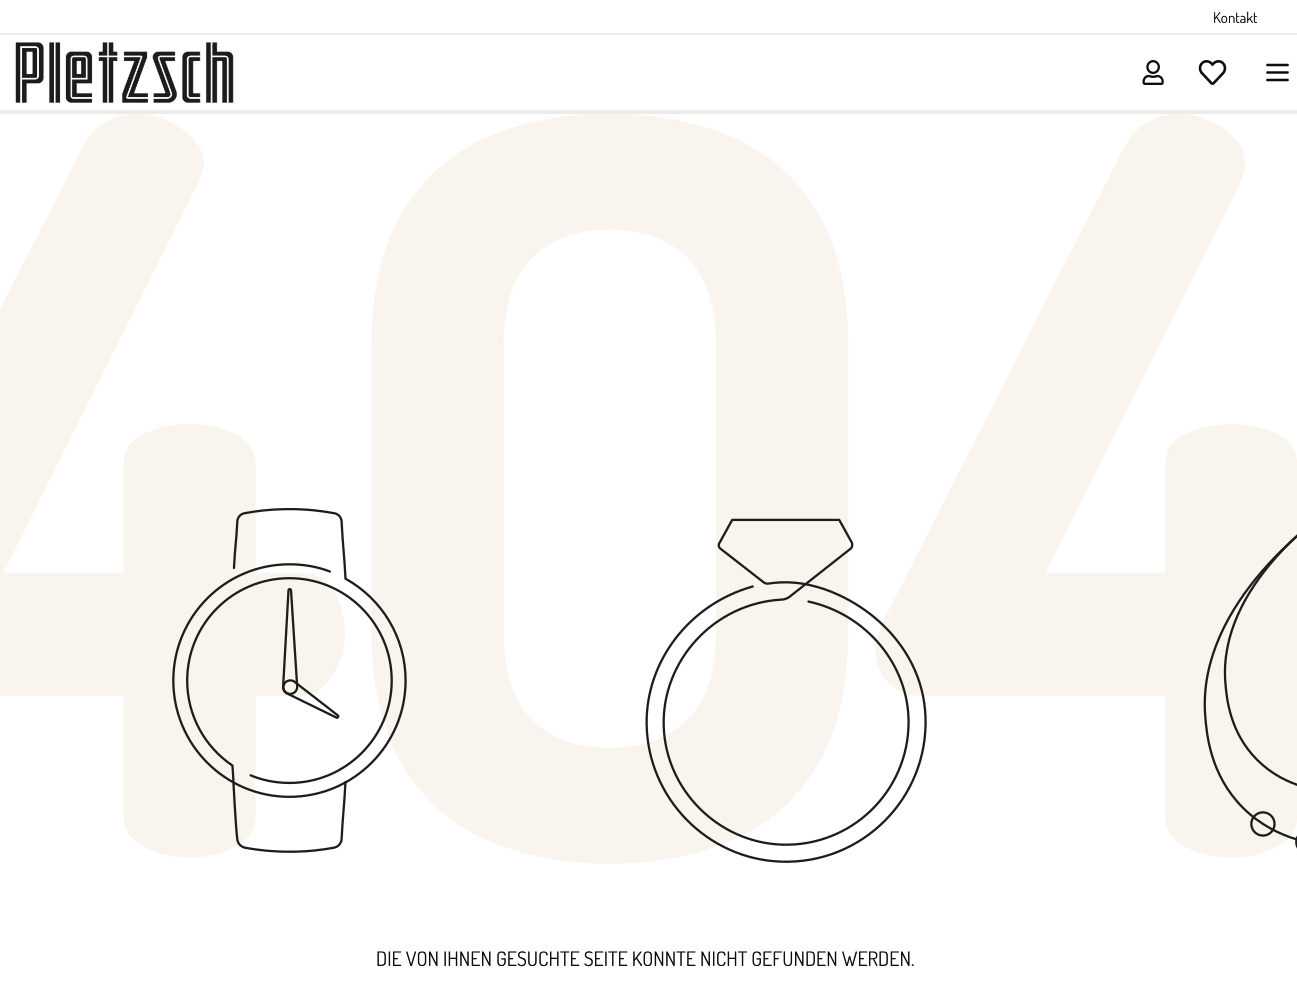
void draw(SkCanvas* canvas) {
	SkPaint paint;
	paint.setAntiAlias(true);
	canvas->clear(0xffffffff);
	paint.setColor(0xffedebe7);
	canvas->drawRect(SkRect::MakeXYWH(0, 110, 1297, 4), paint);
	canvas->drawRect(SkRect::MakeXYWH(0, 33, 1297, 2), paint);
	SkFont f1(fontMgr->matchFamilyStyle("Dosis", SkFontStyle::Normal()), 15);
	f1.setSubpixel(true);
	paint.setColor(0xff0d0d0d);
	canvas->drawString("Kontakt", 1213, 23, f1, paint);
	canvas->drawImageRect(SkImages::DeferredFromEncodedData(SkData::MakeFromFileName("img1.png")), SkRect::MakeXYWH(15, 42, 219, 61), SkSamplingOptions());
	canvas->drawImageRect(SkImages::DeferredFromEncodedData(SkData::MakeFromFileName("img2.png")), SkRect::MakeXYWH(1142, 60, 22, 25), SkSamplingOptions());
	canvas->drawImageRect(SkImages::DeferredFromEncodedData(SkData::MakeFromFileName("img3.png")), SkRect::MakeXYWH(1198, 60, 29, 25), SkSamplingOptions());
	canvas->drawImageRect(SkImages::DeferredFromEncodedData(SkData::MakeFromFileName("img4.png")), SkRect::MakeXYWH(1266, 63, 23, 19), SkSamplingOptions());
	canvas->drawImageRect(SkImages::DeferredFromEncodedData(SkData::MakeFromFileName("img5.png")), SkRect::MakeXYWH(0, 114, 1297, 750), SkSamplingOptions());
	SkFont f2(fontMgr->matchFamilyStyle("Dosis", SkFontStyle::Normal()), 20);
	f2.setSubpixel(true);
	canvas->drawString("DIE VON IHNEN GESUCHTE SEITE KONNTE NICHT GEFUNDEN WERDEN.", 376, 966, f2, paint);
}
